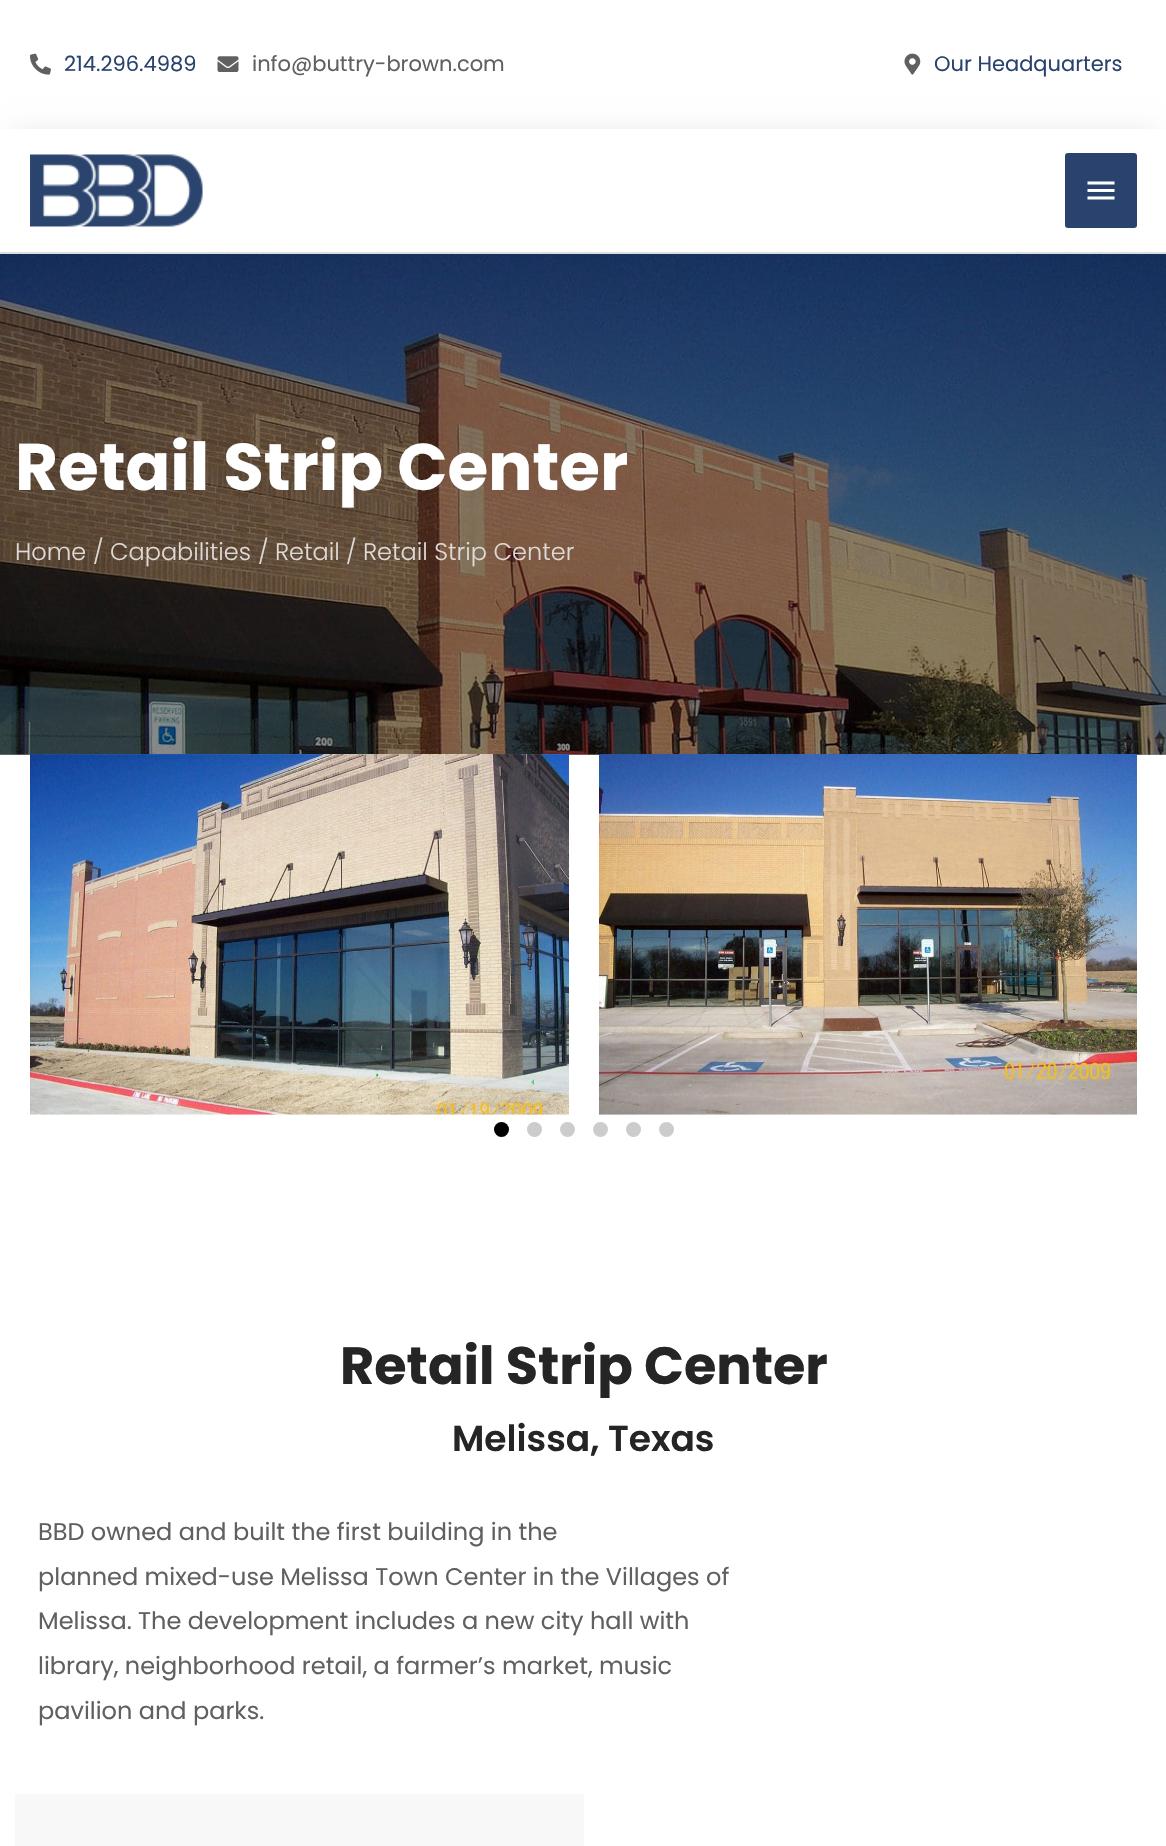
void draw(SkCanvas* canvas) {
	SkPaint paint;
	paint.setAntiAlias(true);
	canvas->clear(0xffffffff);
	paint.setColor(0xff8c8c8c);
	canvas->drawRect(SkRect::MakeXYWH(0, 754, 1166, 1), paint);
	canvas->drawImageRect(SkImages::DeferredFromEncodedData(SkData::MakeFromFileName("img1.png")), SkRect::MakeXYWH(30, 53, 21, 22), SkSamplingOptions());
	SkFont f1(fontMgr->matchFamilyStyle("Poppins", SkFontStyle::Normal()), 21);
	f1.setSubpixel(true);
	paint.setColor(0xff29436e);
	canvas->drawString("214.296.4989", 64, 71, f1, paint);
	canvas->drawImageRect(SkImages::DeferredFromEncodedData(SkData::MakeFromFileName("img2.png")), SkRect::MakeXYWH(217, 56, 22, 16), SkSamplingOptions());
	paint.setColor(0xff606060);
	canvas->drawString("info@buttry-brown.com", 252, 71, f1, paint);
	canvas->drawImageRect(SkImages::DeferredFromEncodedData(SkData::MakeFromFileName("img3.png")), SkRect::MakeXYWH(904, 53, 17, 22), SkSamplingOptions());
	paint.setColor(0xff29436e);
	canvas->drawString("Our Headquarters", 934, 71, f1, paint);
	canvas->drawImageRect(SkImages::DeferredFromEncodedData(SkData::MakeFromFileName("img6.png")), SkRect::MakeXYWH(0, 254, 1166, 501), SkSamplingOptions());
	paint.setColor(0x1a000000);
	paint.setMaskFilter(SkMaskFilter::MakeBlur(kNormal_SkBlurStyle, 13.5));
	canvas->drawRect(SkRect::MakeXYWH(12, 134, 1143, 100), paint);
	paint.setMaskFilter(nullptr);
	paint.setColor(0xffffffff);
	canvas->drawRect(SkRect::MakeXYWH(0, 129, 1166, 122), paint);
	paint.setColor(0xffdddddd);
	canvas->drawRect(SkRect::MakeXYWH(0, 252, 1166, 2), paint);
	canvas->drawImageRect(SkImages::DeferredFromEncodedData(SkData::MakeFromFileName("img4.png")), SkRect::MakeXYWH(30, 154, 173, 73), SkSamplingOptions());
	paint.setColor(0xff29436e);
	canvas->drawRoundRect(SkRect::MakeXYWH(1065, 153, 72, 75), 3, 3, paint);
	canvas->drawImageRect(SkImages::DeferredFromEncodedData(SkData::MakeFromFileName("img5.png")), SkRect::MakeXYWH(1087, 181, 28, 19), SkSamplingOptions());
	SkFont f2(fontMgr->matchFamilyStyle("Poppins", SkFontStyle::Bold()), 66);
	f2.setSubpixel(true);
	paint.setColor(0xffffffff);
	canvas->drawString("Retail Strip Center", 15, 490, f2, paint);
	SkFont f3(fontMgr->matchFamilyStyle("Poppins", SkFontStyle(300, SkFontStyle::kNormal_Width, SkFontStyle::kUpright_Slant)), 24);
	f3.setSubpixel(true);
	paint.setColor(0xffdedad7);
	canvas->drawString("Home", 15, 560, f3, paint);
	canvas->drawString("/", 93, 560, f3, paint);
	canvas->drawString("Capabilities", 110, 560, f3, paint);
	canvas->drawString("/", 258, 560, f3, paint);
	canvas->drawString("Retail", 275, 560, f3, paint);
	canvas->drawString("/", 346, 560, f3, paint);
	canvas->drawString("Retail Strip Center", 363, 560, f3, paint);
	canvas->drawImageRect(SkImages::DeferredFromEncodedData(SkData::MakeFromFileName("img7.png")), SkRect::MakeXYWH(30, 754, 539, 361), SkSamplingOptions());
	canvas->drawImageRect(SkImages::DeferredFromEncodedData(SkData::MakeFromFileName("img8.png")), SkRect::MakeXYWH(599, 754, 538, 361), SkSamplingOptions());
	paint.setColor(0xff000000);
	canvas->drawCircle(501.5, 1129.5, 7.5, paint);
	paint.setColor(0xffcccccc);
	canvas->drawCircle(534.5, 1129.5, 7.5, paint);
	canvas->drawCircle(567.5, 1129.5, 7.5, paint);
	canvas->drawCircle(600.5, 1129.5, 7.5, paint);
	canvas->drawCircle(633.5, 1129.5, 7.5, paint);
	canvas->drawCircle(666.5, 1129.5, 7.5, paint);
	SkFont f4(fontMgr->matchFamilyStyle("Poppins", SkFontStyle::Bold()), 52.5);
	f4.setSubpixel(true);
	paint.setColor(0xff252525);
	canvas->drawString("Retail Strip Center", 340, 1384, f4, paint);
	SkFont f5(fontMgr->matchFamilyStyle("Poppins", SkFontStyle(600, SkFontStyle::kNormal_Width, SkFontStyle::kUpright_Slant)), 36);
	f5.setSubpixel(true);
	canvas->drawString("Melissa, Texas", 452, 1451, f5, paint);
	SkFont f6(fontMgr->matchFamilyStyle("Poppins", SkFontStyle::Normal()), 24);
	f6.setSubpixel(true);
	paint.setColor(0xff606060);
	canvas->drawString("BBD owned and built the first building in the", 38, 1540, f6, paint);
	canvas->drawString("planned mixed-use Melissa Town Center in the Villages of", 38, 1585, f6, paint);
	canvas->drawString("Melissa. The development includes a new city hall with", 38, 1629, f6, paint);
	canvas->drawString("library, neighborhood retail, a farmer’s market, music", 38, 1674, f6, paint);
	canvas->drawString("pavilion and parks.", 38, 1719, f6, paint);
	paint.setColor(0xfff8f8f8);
	canvas->drawRect(SkRect::MakeXYWH(15, 1794, 569, 52), paint);
}
